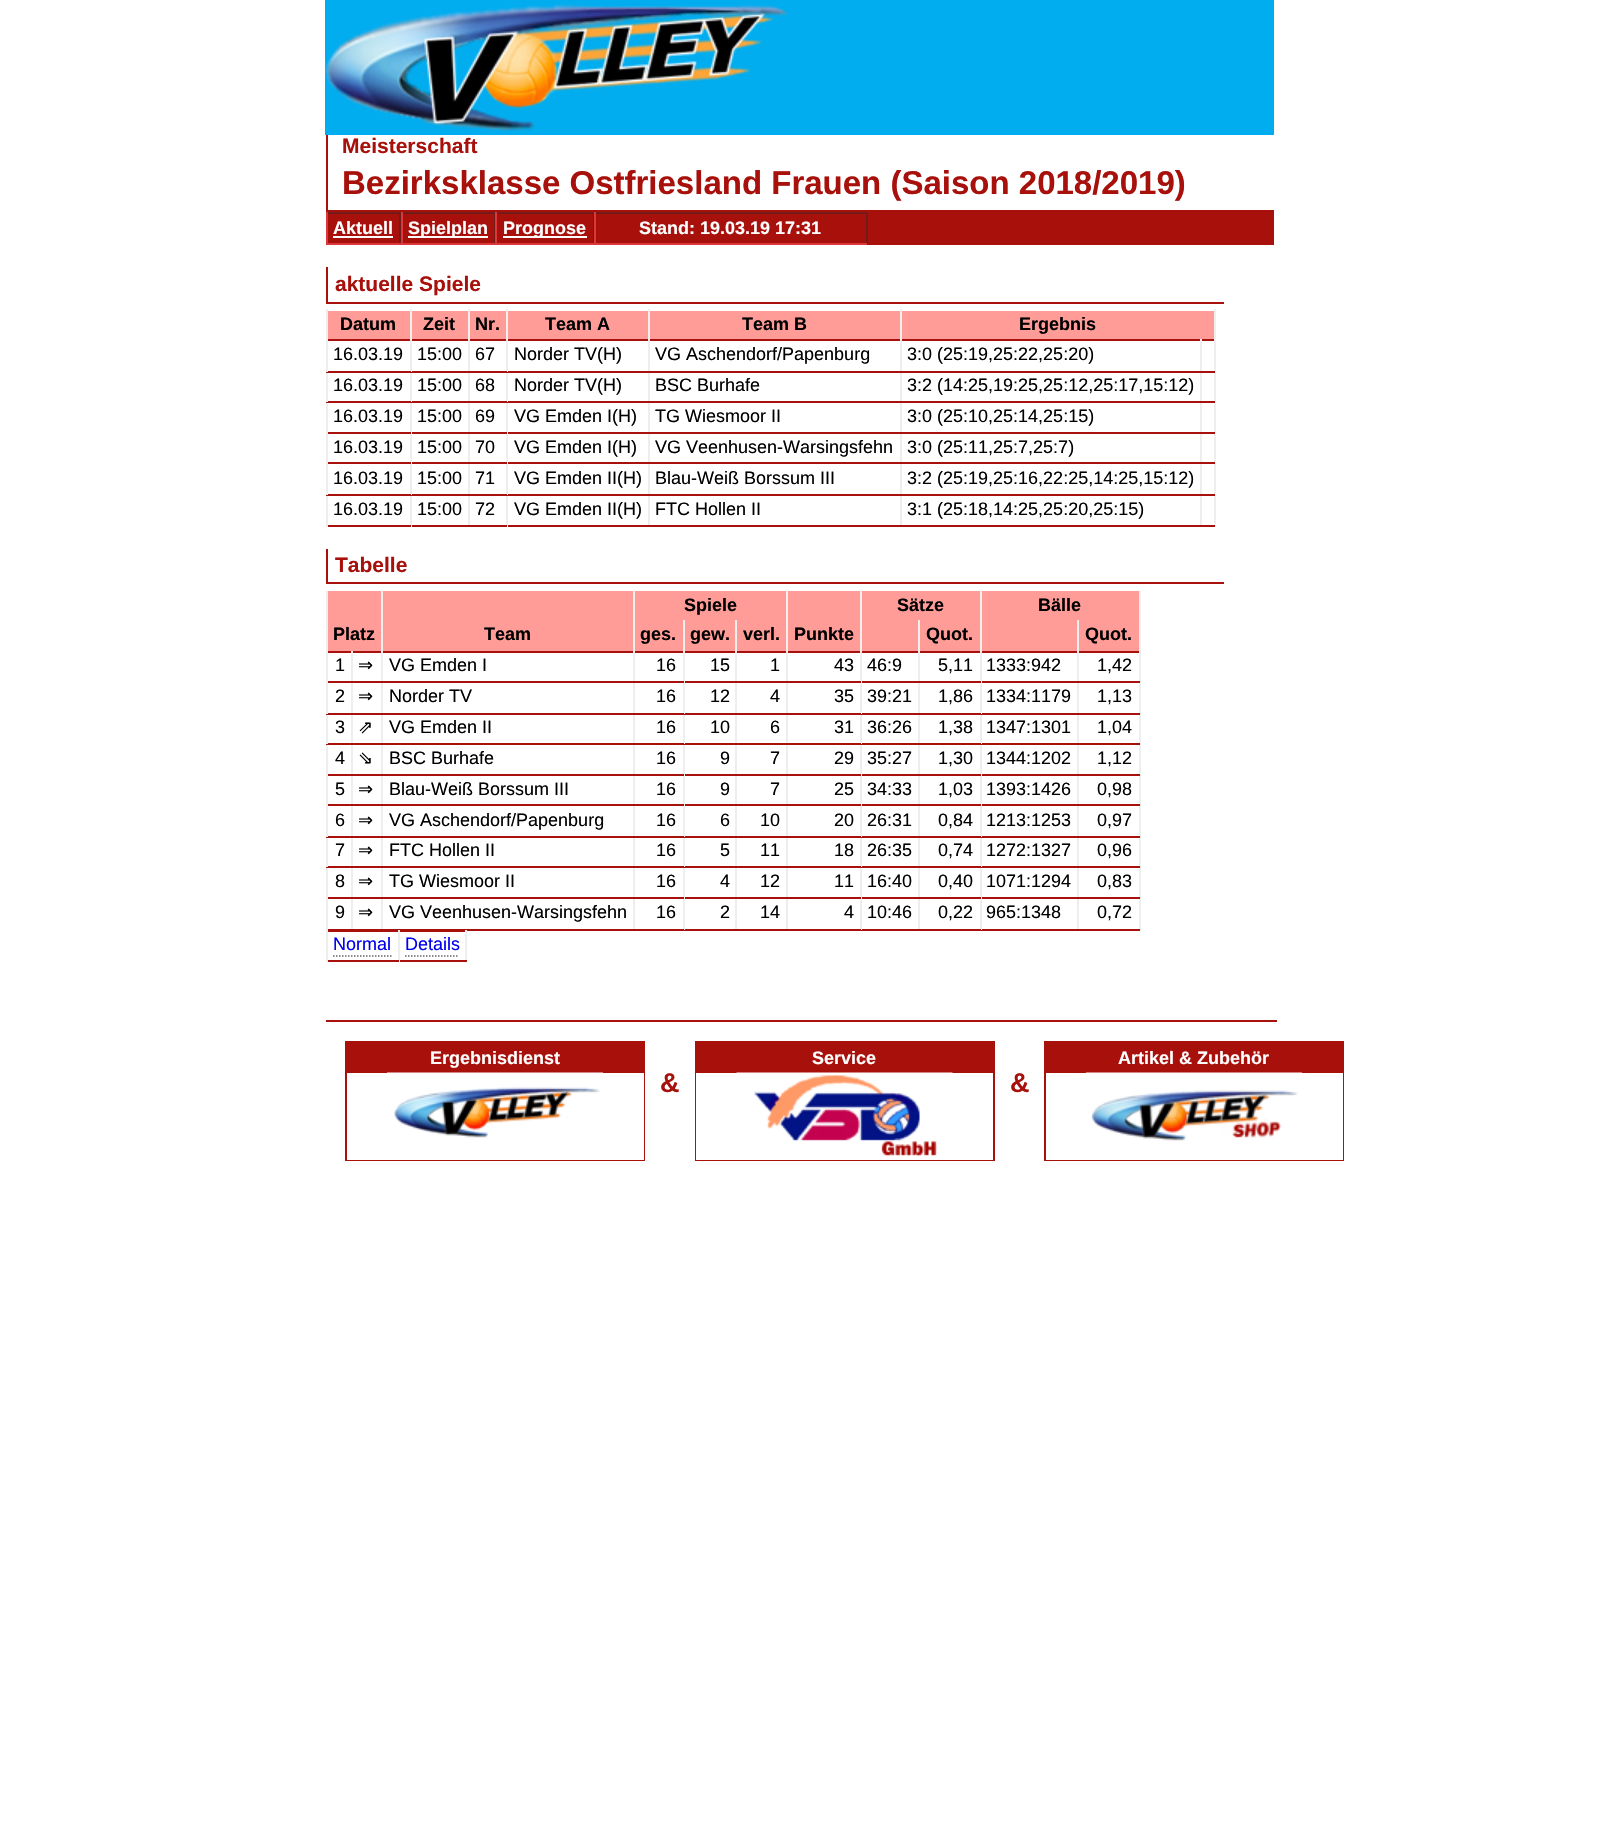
void draw(SkCanvas* canvas) {
	SkPaint paint;
	paint.setAntiAlias(true);
	auto svgPath = [&](const char* data, bool evenOdd = false) {
		SkPath result = *SkParsePath::FromSVGString(data);
		if (evenOdd) result.setFillType(SkPathFillType::kEvenOdd);
		return result;
	};
	canvas->clear(0xffffffff);
	paint.setColor(0xff01adef);
	canvas->drawRect(SkRect::MakeXYWH(325, 0, 949, 135), paint);
	canvas->drawImageRect(SkImages::DeferredFromEncodedData(SkData::MakeFromFileName("img1.png")), SkRect::MakeXYWH(325, 4, 464, 127), SkSamplingOptions());
	paint.setColor(0xffa7100b);
	canvas->drawRect(SkRect::MakeXYWH(326, 210, 948, 2), paint);
	canvas->drawRect(SkRect::MakeXYWH(326, 135, 2, 77), paint);
	SkFont f1(fontMgr->matchFamilyStyle("Liberation Sans", SkFontStyle::Bold()), 21);
	f1.setSubpixel(true);
	canvas->drawString("Meisterschaft", 342, 153, f1, paint);
	SkFont f2(fontMgr->matchFamilyStyle("Liberation Sans", SkFontStyle::Bold()), 33);
	f2.setSubpixel(true);
	canvas->drawString("Bezirksklasse Ostfriesland Frauen (Saison 2018/2019)", 342, 194, f2, paint);
	canvas->drawRect(SkRect::MakeXYWH(328, 212, 946, 33), paint);
	paint.setColor(0xff711c19);
	canvas->drawRect(SkRect::MakeXYWH(326, 212, 541, 2), paint);
	canvas->drawRect(SkRect::MakeXYWH(399, 212, 2, 33), paint);
	paint.setColor(0xffdc383b);
	canvas->drawRect(SkRect::MakeXYWH(326, 243, 75, 2), paint);
	canvas->drawRect(SkRect::MakeXYWH(326, 212, 2, 33), paint);
	SkFont f3(fontMgr->matchFamilyStyle("Liberation Sans", SkFontStyle::Bold()), 18);
	f3.setSubpixel(true);
	paint.setColor(0xffffffff);
	canvas->drawString("Aktuell", 333, 234, f3, paint);
	canvas->drawRect(SkRect::MakeXYWH(333, 236, 60, 2), paint);
	paint.setColor(0xff711c19);
	canvas->drawRect(SkRect::MakeXYWH(494, 212, 1, 33), paint);
	paint.setColor(0xffdc383b);
	canvas->drawRect(SkRect::MakeXYWH(401, 243, 94, 2), paint);
	canvas->drawRect(SkRect::MakeXYWH(401, 212, 2, 33), paint);
	paint.setColor(0xffffffff);
	canvas->drawRect(SkRect::MakeXYWH(408, 236, 80, 2), paint);
	canvas->drawString("Spielplan", 408, 234, f3, paint);
	paint.setColor(0xff711c19);
	canvas->drawRect(SkRect::MakeXYWH(593, 212, 1, 33), paint);
	paint.setColor(0xffdc383b);
	canvas->drawRect(SkRect::MakeXYWH(495, 243, 99, 2), paint);
	canvas->drawRect(SkRect::MakeXYWH(495, 212, 2, 33), paint);
	paint.setColor(0xffffffff);
	canvas->drawRect(SkRect::MakeXYWH(503, 236, 84, 2), paint);
	canvas->drawString("Prognose", 503, 234, f3, paint);
	paint.setColor(0xff711c19);
	canvas->drawRect(SkRect::MakeXYWH(866, 212, 2, 33), paint);
	paint.setColor(0xffdc383b);
	canvas->drawRect(SkRect::MakeXYWH(594, 243, 273, 2), paint);
	canvas->drawRect(SkRect::MakeXYWH(594, 212, 2, 33), paint);
	paint.setColor(0xffffffff);
	canvas->drawString("Stand: 19.03.19 17:31", 639, 234, f3, paint);
	paint.setColor(0xffa7100b);
	canvas->drawRect(SkRect::MakeXYWH(326, 302, 898, 2), paint);
	canvas->drawRect(SkRect::MakeXYWH(326, 267, 2, 36), paint);
	canvas->drawString("aktuelle Spiele", 335, 291, f1, paint);
	paint.setColor(0xffff9c97);
	canvas->drawRect(SkRect::MakeXYWH(328, 311, 82, 28), paint);
	paint.setColor(0xff000000);
	canvas->drawString("Datum", 340, 330, f3, paint);
	paint.setColor(0xffff9c97);
	canvas->drawRect(SkRect::MakeXYWH(412, 311, 56, 28), paint);
	paint.setColor(0xff000000);
	canvas->drawString("Zeit", 423, 330, f3, paint);
	paint.setColor(0xffff9c97);
	canvas->drawRect(SkRect::MakeXYWH(470, 311, 36, 28), paint);
	paint.setColor(0xff000000);
	canvas->drawString("Nr.", 475, 330, f3, paint);
	paint.setColor(0xffff9c97);
	canvas->drawRect(SkRect::MakeXYWH(508, 311, 140, 28), paint);
	paint.setColor(0xff000000);
	canvas->drawString("Team A", 545, 330, f3, paint);
	paint.setColor(0xffff9c97);
	canvas->drawRect(SkRect::MakeXYWH(650, 311, 250, 28), paint);
	paint.setColor(0xff000000);
	canvas->drawString("Team B", 742, 330, f3, paint);
	paint.setColor(0xffff9c97);
	canvas->drawRect(SkRect::MakeXYWH(902, 311, 312, 28), paint);
	paint.setColor(0xff000000);
	canvas->drawString("Ergebnis", 1019, 330, f3, paint);
	paint.setColor(0xffa7100b);
	canvas->drawRect(SkRect::MakeXYWH(326, 339, 889, 2), paint);
	paint.setColor(0xffeeeeee);
	canvas->drawRect(SkRect::MakeXYWH(1214, 371, 2, 156), paint);
	canvas->drawRect(SkRect::MakeXYWH(1214, 309, 2, 63), paint);
	paint.setColor(0xffa7100b);
	canvas->drawRect(SkRect::MakeXYWH(1200, 525, 15, 2), paint);
	paint.setColor(0xffeeeeee);
	canvas->drawRect(SkRect::MakeXYWH(1200, 494, 2, 33), paint);
	paint.setColor(0xffa7100b);
	canvas->drawRect(SkRect::MakeXYWH(1200, 494, 15, 2), paint);
	paint.setColor(0xffeeeeee);
	canvas->drawRect(SkRect::MakeXYWH(1200, 462, 2, 33), paint);
	paint.setColor(0xffa7100b);
	canvas->drawRect(SkRect::MakeXYWH(1200, 462, 15, 2), paint);
	paint.setColor(0xffeeeeee);
	canvas->drawRect(SkRect::MakeXYWH(1200, 432, 2, 32), paint);
	paint.setColor(0xffa7100b);
	canvas->drawRect(SkRect::MakeXYWH(1200, 432, 15, 2), paint);
	paint.setColor(0xffeeeeee);
	canvas->drawRect(SkRect::MakeXYWH(1200, 401, 2, 33), paint);
	paint.setColor(0xffa7100b);
	canvas->drawRect(SkRect::MakeXYWH(1200, 401, 15, 2), paint);
	paint.setColor(0xffeeeeee);
	canvas->drawRect(SkRect::MakeXYWH(1200, 371, 2, 31), paint);
	paint.setColor(0xffa7100b);
	canvas->drawRect(SkRect::MakeXYWH(1200, 371, 15, 2), paint);
	paint.setColor(0xffeeeeee);
	canvas->drawRect(SkRect::MakeXYWH(1200, 339, 2, 33), paint);
	paint.setColor(0xffa7100b);
	canvas->drawRect(SkRect::MakeXYWH(900, 525, 302, 2), paint);
	paint.setColor(0xffeeeeee);
	canvas->drawRect(SkRect::MakeXYWH(900, 494, 2, 33), paint);
	paint.setColor(0xffa7100b);
	canvas->drawRect(SkRect::MakeXYWH(900, 494, 302, 2), paint);
	paint.setColor(0xffeeeeee);
	canvas->drawRect(SkRect::MakeXYWH(900, 462, 2, 33), paint);
	paint.setColor(0xffa7100b);
	canvas->drawRect(SkRect::MakeXYWH(900, 462, 302, 2), paint);
	paint.setColor(0xffeeeeee);
	canvas->drawRect(SkRect::MakeXYWH(900, 432, 2, 32), paint);
	paint.setColor(0xffa7100b);
	canvas->drawRect(SkRect::MakeXYWH(900, 432, 302, 2), paint);
	paint.setColor(0xffeeeeee);
	canvas->drawRect(SkRect::MakeXYWH(900, 401, 2, 33), paint);
	paint.setColor(0xffa7100b);
	canvas->drawRect(SkRect::MakeXYWH(900, 401, 302, 2), paint);
	paint.setColor(0xffeeeeee);
	canvas->drawRect(SkRect::MakeXYWH(900, 371, 2, 31), paint);
	paint.setColor(0xffa7100b);
	canvas->drawRect(SkRect::MakeXYWH(900, 371, 302, 2), paint);
	paint.setColor(0xffeeeeee);
	canvas->drawRect(SkRect::MakeXYWH(900, 309, 2, 63), paint);
	paint.setColor(0xffa7100b);
	canvas->drawRect(SkRect::MakeXYWH(648, 525, 254, 2), paint);
	paint.setColor(0xffeeeeee);
	canvas->drawRect(SkRect::MakeXYWH(648, 494, 2, 33), paint);
	paint.setColor(0xffa7100b);
	canvas->drawRect(SkRect::MakeXYWH(648, 494, 254, 2), paint);
	paint.setColor(0xffeeeeee);
	canvas->drawRect(SkRect::MakeXYWH(648, 462, 2, 33), paint);
	paint.setColor(0xffa7100b);
	canvas->drawRect(SkRect::MakeXYWH(648, 462, 254, 2), paint);
	paint.setColor(0xffeeeeee);
	canvas->drawRect(SkRect::MakeXYWH(648, 432, 2, 32), paint);
	paint.setColor(0xffa7100b);
	canvas->drawRect(SkRect::MakeXYWH(648, 432, 254, 2), paint);
	paint.setColor(0xffeeeeee);
	canvas->drawRect(SkRect::MakeXYWH(648, 401, 2, 33), paint);
	paint.setColor(0xffa7100b);
	canvas->drawRect(SkRect::MakeXYWH(648, 401, 254, 2), paint);
	paint.setColor(0xffeeeeee);
	canvas->drawRect(SkRect::MakeXYWH(648, 371, 2, 31), paint);
	paint.setColor(0xffa7100b);
	canvas->drawRect(SkRect::MakeXYWH(648, 371, 254, 2), paint);
	paint.setColor(0xffeeeeee);
	canvas->drawRect(SkRect::MakeXYWH(648, 309, 2, 63), paint);
	paint.setColor(0xffa7100b);
	canvas->drawRect(SkRect::MakeXYWH(506, 525, 144, 2), paint);
	paint.setColor(0xffeeeeee);
	canvas->drawRect(SkRect::MakeXYWH(506, 494, 2, 33), paint);
	paint.setColor(0xffa7100b);
	canvas->drawRect(SkRect::MakeXYWH(506, 494, 144, 2), paint);
	paint.setColor(0xffeeeeee);
	canvas->drawRect(SkRect::MakeXYWH(506, 462, 2, 33), paint);
	paint.setColor(0xffa7100b);
	canvas->drawRect(SkRect::MakeXYWH(506, 462, 144, 2), paint);
	paint.setColor(0xffeeeeee);
	canvas->drawRect(SkRect::MakeXYWH(506, 432, 2, 32), paint);
	paint.setColor(0xffa7100b);
	canvas->drawRect(SkRect::MakeXYWH(506, 432, 144, 2), paint);
	paint.setColor(0xffeeeeee);
	canvas->drawRect(SkRect::MakeXYWH(506, 401, 2, 33), paint);
	paint.setColor(0xffa7100b);
	canvas->drawRect(SkRect::MakeXYWH(506, 401, 144, 2), paint);
	paint.setColor(0xffeeeeee);
	canvas->drawRect(SkRect::MakeXYWH(506, 371, 2, 31), paint);
	paint.setColor(0xffa7100b);
	canvas->drawRect(SkRect::MakeXYWH(506, 371, 144, 2), paint);
	paint.setColor(0xffeeeeee);
	canvas->drawRect(SkRect::MakeXYWH(506, 309, 2, 63), paint);
	paint.setColor(0xffa7100b);
	canvas->drawRect(SkRect::MakeXYWH(468, 525, 39, 2), paint);
	paint.setColor(0xffeeeeee);
	canvas->drawRect(SkRect::MakeXYWH(468, 494, 2, 33), paint);
	paint.setColor(0xffa7100b);
	canvas->drawRect(SkRect::MakeXYWH(468, 494, 39, 2), paint);
	paint.setColor(0xffeeeeee);
	canvas->drawRect(SkRect::MakeXYWH(468, 462, 2, 33), paint);
	paint.setColor(0xffa7100b);
	canvas->drawRect(SkRect::MakeXYWH(468, 462, 39, 2), paint);
	paint.setColor(0xffeeeeee);
	canvas->drawRect(SkRect::MakeXYWH(468, 432, 2, 32), paint);
	paint.setColor(0xffa7100b);
	canvas->drawRect(SkRect::MakeXYWH(468, 432, 39, 2), paint);
	paint.setColor(0xffeeeeee);
	canvas->drawRect(SkRect::MakeXYWH(468, 401, 2, 33), paint);
	paint.setColor(0xffa7100b);
	canvas->drawRect(SkRect::MakeXYWH(468, 401, 39, 2), paint);
	paint.setColor(0xffeeeeee);
	canvas->drawRect(SkRect::MakeXYWH(468, 371, 2, 31), paint);
	paint.setColor(0xffa7100b);
	canvas->drawRect(SkRect::MakeXYWH(468, 371, 39, 2), paint);
	paint.setColor(0xffeeeeee);
	canvas->drawRect(SkRect::MakeXYWH(468, 309, 2, 63), paint);
	paint.setColor(0xffa7100b);
	canvas->drawRect(SkRect::MakeXYWH(410, 525, 60, 2), paint);
	paint.setColor(0xffeeeeee);
	canvas->drawRect(SkRect::MakeXYWH(410, 494, 2, 33), paint);
	paint.setColor(0xffa7100b);
	canvas->drawRect(SkRect::MakeXYWH(410, 494, 60, 2), paint);
	paint.setColor(0xffeeeeee);
	canvas->drawRect(SkRect::MakeXYWH(410, 462, 2, 33), paint);
	paint.setColor(0xffa7100b);
	canvas->drawRect(SkRect::MakeXYWH(410, 462, 60, 2), paint);
	paint.setColor(0xffeeeeee);
	canvas->drawRect(SkRect::MakeXYWH(410, 432, 2, 32), paint);
	paint.setColor(0xffa7100b);
	canvas->drawRect(SkRect::MakeXYWH(410, 432, 60, 2), paint);
	paint.setColor(0xffeeeeee);
	canvas->drawRect(SkRect::MakeXYWH(410, 401, 2, 33), paint);
	paint.setColor(0xffa7100b);
	canvas->drawRect(SkRect::MakeXYWH(410, 401, 60, 2), paint);
	paint.setColor(0xffeeeeee);
	canvas->drawRect(SkRect::MakeXYWH(410, 371, 2, 31), paint);
	paint.setColor(0xffa7100b);
	canvas->drawRect(SkRect::MakeXYWH(410, 371, 60, 2), paint);
	paint.setColor(0xffeeeeee);
	canvas->drawRect(SkRect::MakeXYWH(410, 309, 2, 63), paint);
	paint.setColor(0xffa7100b);
	canvas->drawRect(SkRect::MakeXYWH(326, 525, 85, 2), paint);
	paint.setColor(0xffeeeeee);
	canvas->drawRect(SkRect::MakeXYWH(326, 494, 2, 33), paint);
	paint.setColor(0xffa7100b);
	canvas->drawRect(SkRect::MakeXYWH(326, 494, 85, 2), paint);
	paint.setColor(0xffeeeeee);
	canvas->drawRect(SkRect::MakeXYWH(326, 462, 2, 33), paint);
	paint.setColor(0xffa7100b);
	canvas->drawRect(SkRect::MakeXYWH(326, 462, 85, 2), paint);
	paint.setColor(0xffeeeeee);
	canvas->drawRect(SkRect::MakeXYWH(326, 432, 2, 32), paint);
	paint.setColor(0xffa7100b);
	canvas->drawRect(SkRect::MakeXYWH(326, 432, 85, 2), paint);
	paint.setColor(0xffeeeeee);
	canvas->drawRect(SkRect::MakeXYWH(326, 401, 2, 33), paint);
	paint.setColor(0xffa7100b);
	canvas->drawRect(SkRect::MakeXYWH(326, 401, 85, 2), paint);
	paint.setColor(0xffeeeeee);
	canvas->drawRect(SkRect::MakeXYWH(326, 371, 2, 31), paint);
	paint.setColor(0xffa7100b);
	canvas->drawRect(SkRect::MakeXYWH(326, 371, 85, 2), paint);
	paint.setColor(0xffeeeeee);
	canvas->drawRect(SkRect::MakeXYWH(326, 309, 2, 63), paint);
	SkFont f4(fontMgr->matchFamilyStyle("Liberation Sans", SkFontStyle::Normal()), 18);
	f4.setSubpixel(true);
	paint.setColor(0xff000000);
	canvas->drawString("16.03.19", 333, 360, f4, paint);
	canvas->drawString("15:00", 417, 360, f4, paint);
	canvas->drawString("67", 475, 360, f4, paint);
	canvas->drawString("Norder TV(H)", 514, 360, f4, paint);
	canvas->drawString("VG Aschendorf/Papenburg", 655, 360, f4, paint);
	canvas->drawString("3:0 (25:19,25:22,25:20)", 907, 360, f4, paint);
	canvas->drawString("16.03.19", 333, 391, f4, paint);
	canvas->drawString("15:00", 417, 391, f4, paint);
	canvas->drawString("68", 475, 391, f4, paint);
	canvas->drawString("Norder TV(H)", 514, 391, f4, paint);
	canvas->drawString("BSC Burhafe", 655, 391, f4, paint);
	canvas->drawString("3:2 (14:25,19:25,25:12,25:17,15:12)", 907, 391, f4, paint);
	canvas->drawString("16.03.19", 333, 422, f4, paint);
	canvas->drawString("15:00", 417, 422, f4, paint);
	canvas->drawString("69", 475, 422, f4, paint);
	canvas->drawString("VG Emden I(H)", 514, 422, f4, paint);
	canvas->drawString("TG Wiesmoor II", 655, 422, f4, paint);
	canvas->drawString("3:0 (25:10,25:14,25:15)", 907, 422, f4, paint);
	canvas->drawString("16.03.19", 333, 453, f4, paint);
	canvas->drawString("15:00", 417, 453, f4, paint);
	canvas->drawString("70", 475, 453, f4, paint);
	canvas->drawString("VG Emden I(H)", 514, 453, f4, paint);
	canvas->drawString("VG Veenhusen-Warsingsfehn", 655, 453, f4, paint);
	canvas->drawString("3:0 (25:11,25:7,25:7)", 907, 453, f4, paint);
	canvas->drawString("16.03.19", 333, 484, f4, paint);
	canvas->drawString("15:00", 417, 484, f4, paint);
	canvas->drawString("71", 475, 484, f4, paint);
	canvas->drawString("VG Emden II(H)", 514, 484, f4, paint);
	canvas->drawString("Blau-Weiß Borssum III", 655, 484, f4, paint);
	canvas->drawString("3:2 (25:19,25:16,22:25,14:25,15:12)", 907, 484, f4, paint);
	canvas->drawString("16.03.19", 333, 515, f4, paint);
	canvas->drawString("15:00", 417, 515, f4, paint);
	canvas->drawString("72", 475, 515, f4, paint);
	canvas->drawString("VG Emden II(H)", 514, 515, f4, paint);
	canvas->drawString("FTC Hollen II", 655, 515, f4, paint);
	canvas->drawString("3:1 (25:18,14:25,25:20,25:15)", 907, 515, f4, paint);
	paint.setColor(0xffa7100b);
	canvas->drawRect(SkRect::MakeXYWH(326, 582, 898, 2), paint);
	canvas->drawRect(SkRect::MakeXYWH(326, 549, 2, 35), paint);
	canvas->drawString("Tabelle", 335, 572, f1, paint);
	paint.setColor(0xffff9c97);
	canvas->drawRect(SkRect::MakeXYWH(328, 591, 53, 60), paint);
	canvas->drawRect(SkRect::MakeXYWH(383, 591, 250, 60), paint);
	canvas->drawRect(SkRect::MakeXYWH(635, 591, 151, 30), paint);
	paint.setColor(0xff000000);
	canvas->drawString("Spiele", 684, 611, f3, paint);
	paint.setColor(0xffff9c97);
	canvas->drawRect(SkRect::MakeXYWH(788, 591, 72, 60), paint);
	canvas->drawRect(SkRect::MakeXYWH(862, 591, 118, 30), paint);
	paint.setColor(0xff000000);
	canvas->drawString("Sätze", 897, 611, f3, paint);
	paint.setColor(0xffff9c97);
	canvas->drawRect(SkRect::MakeXYWH(982, 591, 157, 30), paint);
	paint.setColor(0xff000000);
	canvas->drawString("Bälle", 1038, 611, f3, paint);
	canvas->drawString("Platz", 333, 640, f3, paint);
	canvas->drawString("Team", 484, 640, f3, paint);
	paint.setColor(0xffff9c97);
	canvas->drawRect(SkRect::MakeXYWH(635, 621, 48, 30), paint);
	paint.setColor(0xff000000);
	canvas->drawString("ges.", 640, 640, f3, paint);
	paint.setColor(0xffff9c97);
	canvas->drawRect(SkRect::MakeXYWH(685, 621, 50, 30), paint);
	paint.setColor(0xff000000);
	canvas->drawString("gew.", 690, 640, f3, paint);
	paint.setColor(0xffff9c97);
	canvas->drawRect(SkRect::MakeXYWH(737, 621, 49, 30), paint);
	paint.setColor(0xff000000);
	canvas->drawString("verl.", 743, 640, f3, paint);
	canvas->drawString("Punkte", 794, 640, f3, paint);
	paint.setColor(0xffff9c97);
	canvas->drawRect(SkRect::MakeXYWH(862, 621, 56, 30), paint);
	canvas->drawRect(SkRect::MakeXYWH(920, 621, 60, 30), paint);
	paint.setColor(0xff000000);
	canvas->drawString("Quot.", 926, 640, f3, paint);
	paint.setColor(0xffff9c97);
	canvas->drawRect(SkRect::MakeXYWH(982, 621, 95, 30), paint);
	canvas->drawRect(SkRect::MakeXYWH(1079, 621, 60, 30), paint);
	paint.setColor(0xff000000);
	canvas->drawString("Quot.", 1085, 640, f3, paint);
	paint.setColor(0xffa7100b);
	canvas->drawRect(SkRect::MakeXYWH(326, 651, 814, 2), paint);
	paint.setColor(0xffeeeeee);
	canvas->drawRect(SkRect::MakeXYWH(1139, 681, 2, 249), paint);
	canvas->drawRect(SkRect::MakeXYWH(1139, 591, 2, 92), paint);
	paint.setColor(0xffa7100b);
	canvas->drawRect(SkRect::MakeXYWH(1077, 929, 63, 2), paint);
	paint.setColor(0xffeeeeee);
	canvas->drawRect(SkRect::MakeXYWH(1077, 897, 2, 33), paint);
	paint.setColor(0xffa7100b);
	canvas->drawRect(SkRect::MakeXYWH(1077, 897, 63, 2), paint);
	paint.setColor(0xffeeeeee);
	canvas->drawRect(SkRect::MakeXYWH(1077, 866, 2, 33), paint);
	paint.setColor(0xffa7100b);
	canvas->drawRect(SkRect::MakeXYWH(1077, 866, 63, 2), paint);
	paint.setColor(0xffeeeeee);
	canvas->drawRect(SkRect::MakeXYWH(1077, 836, 2, 31), paint);
	paint.setColor(0xffa7100b);
	canvas->drawRect(SkRect::MakeXYWH(1077, 836, 63, 2), paint);
	paint.setColor(0xffeeeeee);
	canvas->drawRect(SkRect::MakeXYWH(1077, 804, 2, 33), paint);
	paint.setColor(0xffa7100b);
	canvas->drawRect(SkRect::MakeXYWH(1077, 804, 63, 2), paint);
	paint.setColor(0xffeeeeee);
	canvas->drawRect(SkRect::MakeXYWH(1077, 774, 2, 32), paint);
	paint.setColor(0xffa7100b);
	canvas->drawRect(SkRect::MakeXYWH(1077, 774, 63, 2), paint);
	paint.setColor(0xffeeeeee);
	canvas->drawRect(SkRect::MakeXYWH(1077, 743, 2, 33), paint);
	paint.setColor(0xffa7100b);
	canvas->drawRect(SkRect::MakeXYWH(1077, 743, 63, 2), paint);
	paint.setColor(0xffeeeeee);
	canvas->drawRect(SkRect::MakeXYWH(1077, 713, 2, 31), paint);
	paint.setColor(0xffa7100b);
	canvas->drawRect(SkRect::MakeXYWH(1077, 713, 63, 2), paint);
	paint.setColor(0xffeeeeee);
	canvas->drawRect(SkRect::MakeXYWH(1077, 681, 2, 33), paint);
	paint.setColor(0xffa7100b);
	canvas->drawRect(SkRect::MakeXYWH(1077, 681, 63, 2), paint);
	paint.setColor(0xffeeeeee);
	canvas->drawRect(SkRect::MakeXYWH(1077, 620, 2, 63), paint);
	paint.setColor(0xffa7100b);
	canvas->drawRect(SkRect::MakeXYWH(980, 929, 99, 2), paint);
	paint.setColor(0xffeeeeee);
	canvas->drawRect(SkRect::MakeXYWH(980, 897, 2, 33), paint);
	paint.setColor(0xffa7100b);
	canvas->drawRect(SkRect::MakeXYWH(980, 897, 99, 2), paint);
	paint.setColor(0xffeeeeee);
	canvas->drawRect(SkRect::MakeXYWH(980, 866, 2, 33), paint);
	paint.setColor(0xffa7100b);
	canvas->drawRect(SkRect::MakeXYWH(980, 866, 99, 2), paint);
	paint.setColor(0xffeeeeee);
	canvas->drawRect(SkRect::MakeXYWH(980, 836, 2, 31), paint);
	paint.setColor(0xffa7100b);
	canvas->drawRect(SkRect::MakeXYWH(980, 836, 99, 2), paint);
	paint.setColor(0xffeeeeee);
	canvas->drawRect(SkRect::MakeXYWH(980, 804, 2, 33), paint);
	paint.setColor(0xffa7100b);
	canvas->drawRect(SkRect::MakeXYWH(980, 804, 99, 2), paint);
	paint.setColor(0xffeeeeee);
	canvas->drawRect(SkRect::MakeXYWH(980, 774, 2, 32), paint);
	paint.setColor(0xffa7100b);
	canvas->drawRect(SkRect::MakeXYWH(980, 774, 99, 2), paint);
	paint.setColor(0xffeeeeee);
	canvas->drawRect(SkRect::MakeXYWH(980, 743, 2, 33), paint);
	paint.setColor(0xffa7100b);
	canvas->drawRect(SkRect::MakeXYWH(980, 743, 99, 2), paint);
	paint.setColor(0xffeeeeee);
	canvas->drawRect(SkRect::MakeXYWH(980, 713, 2, 31), paint);
	paint.setColor(0xffa7100b);
	canvas->drawRect(SkRect::MakeXYWH(980, 713, 99, 2), paint);
	paint.setColor(0xffeeeeee);
	canvas->drawRect(SkRect::MakeXYWH(980, 681, 2, 33), paint);
	paint.setColor(0xffa7100b);
	canvas->drawRect(SkRect::MakeXYWH(980, 681, 99, 2), paint);
	paint.setColor(0xffeeeeee);
	canvas->drawRect(SkRect::MakeXYWH(980, 591, 2, 92), paint);
	paint.setColor(0xffa7100b);
	canvas->drawRect(SkRect::MakeXYWH(918, 929, 63, 2), paint);
	paint.setColor(0xffeeeeee);
	canvas->drawRect(SkRect::MakeXYWH(918, 897, 2, 33), paint);
	paint.setColor(0xffa7100b);
	canvas->drawRect(SkRect::MakeXYWH(918, 897, 63, 2), paint);
	paint.setColor(0xffeeeeee);
	canvas->drawRect(SkRect::MakeXYWH(918, 866, 2, 33), paint);
	paint.setColor(0xffa7100b);
	canvas->drawRect(SkRect::MakeXYWH(918, 866, 63, 2), paint);
	paint.setColor(0xffeeeeee);
	canvas->drawRect(SkRect::MakeXYWH(918, 836, 2, 31), paint);
	paint.setColor(0xffa7100b);
	canvas->drawRect(SkRect::MakeXYWH(918, 836, 63, 2), paint);
	paint.setColor(0xffeeeeee);
	canvas->drawRect(SkRect::MakeXYWH(918, 804, 2, 33), paint);
	paint.setColor(0xffa7100b);
	canvas->drawRect(SkRect::MakeXYWH(918, 804, 63, 2), paint);
	paint.setColor(0xffeeeeee);
	canvas->drawRect(SkRect::MakeXYWH(918, 774, 2, 32), paint);
	paint.setColor(0xffa7100b);
	canvas->drawRect(SkRect::MakeXYWH(918, 774, 63, 2), paint);
	paint.setColor(0xffeeeeee);
	canvas->drawRect(SkRect::MakeXYWH(918, 743, 2, 33), paint);
	paint.setColor(0xffa7100b);
	canvas->drawRect(SkRect::MakeXYWH(918, 743, 63, 2), paint);
	paint.setColor(0xffeeeeee);
	canvas->drawRect(SkRect::MakeXYWH(918, 713, 2, 31), paint);
	paint.setColor(0xffa7100b);
	canvas->drawRect(SkRect::MakeXYWH(918, 713, 63, 2), paint);
	paint.setColor(0xffeeeeee);
	canvas->drawRect(SkRect::MakeXYWH(918, 681, 2, 33), paint);
	paint.setColor(0xffa7100b);
	canvas->drawRect(SkRect::MakeXYWH(918, 681, 63, 2), paint);
	paint.setColor(0xffeeeeee);
	canvas->drawRect(SkRect::MakeXYWH(918, 620, 2, 63), paint);
	paint.setColor(0xffa7100b);
	canvas->drawRect(SkRect::MakeXYWH(860, 929, 60, 2), paint);
	paint.setColor(0xffeeeeee);
	canvas->drawRect(SkRect::MakeXYWH(860, 897, 2, 33), paint);
	paint.setColor(0xffa7100b);
	canvas->drawRect(SkRect::MakeXYWH(860, 897, 60, 2), paint);
	paint.setColor(0xffeeeeee);
	canvas->drawRect(SkRect::MakeXYWH(860, 866, 2, 33), paint);
	paint.setColor(0xffa7100b);
	canvas->drawRect(SkRect::MakeXYWH(860, 866, 60, 2), paint);
	paint.setColor(0xffeeeeee);
	canvas->drawRect(SkRect::MakeXYWH(860, 836, 2, 31), paint);
	paint.setColor(0xffa7100b);
	canvas->drawRect(SkRect::MakeXYWH(860, 836, 60, 2), paint);
	paint.setColor(0xffeeeeee);
	canvas->drawRect(SkRect::MakeXYWH(860, 804, 2, 33), paint);
	paint.setColor(0xffa7100b);
	canvas->drawRect(SkRect::MakeXYWH(860, 804, 60, 2), paint);
	paint.setColor(0xffeeeeee);
	canvas->drawRect(SkRect::MakeXYWH(860, 774, 2, 32), paint);
	paint.setColor(0xffa7100b);
	canvas->drawRect(SkRect::MakeXYWH(860, 774, 60, 2), paint);
	paint.setColor(0xffeeeeee);
	canvas->drawRect(SkRect::MakeXYWH(860, 743, 2, 33), paint);
	paint.setColor(0xffa7100b);
	canvas->drawRect(SkRect::MakeXYWH(860, 743, 60, 2), paint);
	paint.setColor(0xffeeeeee);
	canvas->drawRect(SkRect::MakeXYWH(860, 713, 2, 31), paint);
	paint.setColor(0xffa7100b);
	canvas->drawRect(SkRect::MakeXYWH(860, 713, 60, 2), paint);
	paint.setColor(0xffeeeeee);
	canvas->drawRect(SkRect::MakeXYWH(860, 681, 2, 33), paint);
	paint.setColor(0xffa7100b);
	canvas->drawRect(SkRect::MakeXYWH(860, 681, 60, 2), paint);
	paint.setColor(0xffeeeeee);
	canvas->drawRect(SkRect::MakeXYWH(860, 591, 2, 92), paint);
	paint.setColor(0xffa7100b);
	canvas->drawRect(SkRect::MakeXYWH(786, 929, 75, 2), paint);
	paint.setColor(0xffeeeeee);
	canvas->drawRect(SkRect::MakeXYWH(786, 897, 2, 33), paint);
	paint.setColor(0xffa7100b);
	canvas->drawRect(SkRect::MakeXYWH(786, 897, 75, 2), paint);
	paint.setColor(0xffeeeeee);
	canvas->drawRect(SkRect::MakeXYWH(786, 866, 2, 33), paint);
	paint.setColor(0xffa7100b);
	canvas->drawRect(SkRect::MakeXYWH(786, 866, 75, 2), paint);
	paint.setColor(0xffeeeeee);
	canvas->drawRect(SkRect::MakeXYWH(786, 836, 2, 31), paint);
	paint.setColor(0xffa7100b);
	canvas->drawRect(SkRect::MakeXYWH(786, 836, 75, 2), paint);
	paint.setColor(0xffeeeeee);
	canvas->drawRect(SkRect::MakeXYWH(786, 804, 2, 33), paint);
	paint.setColor(0xffa7100b);
	canvas->drawRect(SkRect::MakeXYWH(786, 804, 75, 2), paint);
	paint.setColor(0xffeeeeee);
	canvas->drawRect(SkRect::MakeXYWH(786, 774, 2, 32), paint);
	paint.setColor(0xffa7100b);
	canvas->drawRect(SkRect::MakeXYWH(786, 774, 75, 2), paint);
	paint.setColor(0xffeeeeee);
	canvas->drawRect(SkRect::MakeXYWH(786, 743, 2, 33), paint);
	paint.setColor(0xffa7100b);
	canvas->drawRect(SkRect::MakeXYWH(786, 743, 75, 2), paint);
	paint.setColor(0xffeeeeee);
	canvas->drawRect(SkRect::MakeXYWH(786, 713, 2, 31), paint);
	paint.setColor(0xffa7100b);
	canvas->drawRect(SkRect::MakeXYWH(786, 713, 75, 2), paint);
	paint.setColor(0xffeeeeee);
	canvas->drawRect(SkRect::MakeXYWH(786, 681, 2, 33), paint);
	paint.setColor(0xffa7100b);
	canvas->drawRect(SkRect::MakeXYWH(786, 681, 75, 2), paint);
	paint.setColor(0xffeeeeee);
	canvas->drawRect(SkRect::MakeXYWH(786, 591, 2, 92), paint);
	paint.setColor(0xffa7100b);
	canvas->drawRect(SkRect::MakeXYWH(735, 929, 53, 2), paint);
	paint.setColor(0xffeeeeee);
	canvas->drawRect(SkRect::MakeXYWH(735, 897, 2, 33), paint);
	paint.setColor(0xffa7100b);
	canvas->drawRect(SkRect::MakeXYWH(735, 897, 53, 2), paint);
	paint.setColor(0xffeeeeee);
	canvas->drawRect(SkRect::MakeXYWH(735, 866, 2, 33), paint);
	paint.setColor(0xffa7100b);
	canvas->drawRect(SkRect::MakeXYWH(735, 866, 53, 2), paint);
	paint.setColor(0xffeeeeee);
	canvas->drawRect(SkRect::MakeXYWH(735, 836, 2, 31), paint);
	paint.setColor(0xffa7100b);
	canvas->drawRect(SkRect::MakeXYWH(735, 836, 53, 2), paint);
	paint.setColor(0xffeeeeee);
	canvas->drawRect(SkRect::MakeXYWH(735, 804, 2, 33), paint);
	paint.setColor(0xffa7100b);
	canvas->drawRect(SkRect::MakeXYWH(735, 804, 53, 2), paint);
	paint.setColor(0xffeeeeee);
	canvas->drawRect(SkRect::MakeXYWH(735, 774, 2, 32), paint);
	paint.setColor(0xffa7100b);
	canvas->drawRect(SkRect::MakeXYWH(735, 774, 53, 2), paint);
	paint.setColor(0xffeeeeee);
	canvas->drawRect(SkRect::MakeXYWH(735, 743, 2, 33), paint);
	paint.setColor(0xffa7100b);
	canvas->drawRect(SkRect::MakeXYWH(735, 743, 53, 2), paint);
	paint.setColor(0xffeeeeee);
	canvas->drawRect(SkRect::MakeXYWH(735, 713, 2, 31), paint);
	paint.setColor(0xffa7100b);
	canvas->drawRect(SkRect::MakeXYWH(735, 713, 53, 2), paint);
	paint.setColor(0xffeeeeee);
	canvas->drawRect(SkRect::MakeXYWH(735, 681, 2, 33), paint);
	paint.setColor(0xffa7100b);
	canvas->drawRect(SkRect::MakeXYWH(735, 681, 53, 2), paint);
	paint.setColor(0xffeeeeee);
	canvas->drawRect(SkRect::MakeXYWH(735, 620, 2, 63), paint);
	paint.setColor(0xffa7100b);
	canvas->drawRect(SkRect::MakeXYWH(683, 929, 54, 2), paint);
	paint.setColor(0xffeeeeee);
	canvas->drawRect(SkRect::MakeXYWH(683, 897, 2, 33), paint);
	paint.setColor(0xffa7100b);
	canvas->drawRect(SkRect::MakeXYWH(683, 897, 54, 2), paint);
	paint.setColor(0xffeeeeee);
	canvas->drawRect(SkRect::MakeXYWH(683, 866, 2, 33), paint);
	paint.setColor(0xffa7100b);
	canvas->drawRect(SkRect::MakeXYWH(683, 866, 54, 2), paint);
	paint.setColor(0xffeeeeee);
	canvas->drawRect(SkRect::MakeXYWH(683, 836, 2, 31), paint);
	paint.setColor(0xffa7100b);
	canvas->drawRect(SkRect::MakeXYWH(683, 836, 54, 2), paint);
	paint.setColor(0xffeeeeee);
	canvas->drawRect(SkRect::MakeXYWH(683, 804, 2, 33), paint);
	paint.setColor(0xffa7100b);
	canvas->drawRect(SkRect::MakeXYWH(683, 804, 54, 2), paint);
	paint.setColor(0xffeeeeee);
	canvas->drawRect(SkRect::MakeXYWH(683, 774, 2, 32), paint);
	paint.setColor(0xffa7100b);
	canvas->drawRect(SkRect::MakeXYWH(683, 774, 54, 2), paint);
	paint.setColor(0xffeeeeee);
	canvas->drawRect(SkRect::MakeXYWH(683, 743, 2, 33), paint);
	paint.setColor(0xffa7100b);
	canvas->drawRect(SkRect::MakeXYWH(683, 743, 54, 2), paint);
	paint.setColor(0xffeeeeee);
	canvas->drawRect(SkRect::MakeXYWH(683, 713, 2, 31), paint);
	paint.setColor(0xffa7100b);
	canvas->drawRect(SkRect::MakeXYWH(683, 713, 54, 2), paint);
	paint.setColor(0xffeeeeee);
	canvas->drawRect(SkRect::MakeXYWH(683, 681, 2, 33), paint);
	paint.setColor(0xffa7100b);
	canvas->drawRect(SkRect::MakeXYWH(683, 681, 54, 2), paint);
	paint.setColor(0xffeeeeee);
	canvas->drawRect(SkRect::MakeXYWH(683, 620, 2, 63), paint);
	paint.setColor(0xffa7100b);
	canvas->drawRect(SkRect::MakeXYWH(633, 929, 51, 2), paint);
	paint.setColor(0xffeeeeee);
	canvas->drawRect(SkRect::MakeXYWH(633, 897, 2, 33), paint);
	paint.setColor(0xffa7100b);
	canvas->drawRect(SkRect::MakeXYWH(633, 897, 51, 2), paint);
	paint.setColor(0xffeeeeee);
	canvas->drawRect(SkRect::MakeXYWH(633, 866, 2, 33), paint);
	paint.setColor(0xffa7100b);
	canvas->drawRect(SkRect::MakeXYWH(633, 866, 51, 2), paint);
	paint.setColor(0xffeeeeee);
	canvas->drawRect(SkRect::MakeXYWH(633, 836, 2, 31), paint);
	paint.setColor(0xffa7100b);
	canvas->drawRect(SkRect::MakeXYWH(633, 836, 51, 2), paint);
	paint.setColor(0xffeeeeee);
	canvas->drawRect(SkRect::MakeXYWH(633, 804, 2, 33), paint);
	paint.setColor(0xffa7100b);
	canvas->drawRect(SkRect::MakeXYWH(633, 804, 51, 2), paint);
	paint.setColor(0xffeeeeee);
	canvas->drawRect(SkRect::MakeXYWH(633, 774, 2, 32), paint);
	paint.setColor(0xffa7100b);
	canvas->drawRect(SkRect::MakeXYWH(633, 774, 51, 2), paint);
	paint.setColor(0xffeeeeee);
	canvas->drawRect(SkRect::MakeXYWH(633, 743, 2, 33), paint);
	paint.setColor(0xffa7100b);
	canvas->drawRect(SkRect::MakeXYWH(633, 743, 51, 2), paint);
	paint.setColor(0xffeeeeee);
	canvas->drawRect(SkRect::MakeXYWH(633, 713, 2, 31), paint);
	paint.setColor(0xffa7100b);
	canvas->drawRect(SkRect::MakeXYWH(633, 713, 51, 2), paint);
	paint.setColor(0xffeeeeee);
	canvas->drawRect(SkRect::MakeXYWH(633, 681, 2, 33), paint);
	paint.setColor(0xffa7100b);
	canvas->drawRect(SkRect::MakeXYWH(633, 681, 51, 2), paint);
	paint.setColor(0xffeeeeee);
	canvas->drawRect(SkRect::MakeXYWH(633, 591, 2, 92), paint);
	paint.setColor(0xffa7100b);
	canvas->drawRect(SkRect::MakeXYWH(381, 929, 254, 2), paint);
	paint.setColor(0xffeeeeee);
	canvas->drawRect(SkRect::MakeXYWH(381, 897, 2, 33), paint);
	paint.setColor(0xffa7100b);
	canvas->drawRect(SkRect::MakeXYWH(381, 897, 254, 2), paint);
	paint.setColor(0xffeeeeee);
	canvas->drawRect(SkRect::MakeXYWH(381, 866, 2, 33), paint);
	paint.setColor(0xffa7100b);
	canvas->drawRect(SkRect::MakeXYWH(381, 866, 254, 2), paint);
	paint.setColor(0xffeeeeee);
	canvas->drawRect(SkRect::MakeXYWH(381, 836, 2, 31), paint);
	paint.setColor(0xffa7100b);
	canvas->drawRect(SkRect::MakeXYWH(381, 836, 254, 2), paint);
	paint.setColor(0xffeeeeee);
	canvas->drawRect(SkRect::MakeXYWH(381, 804, 2, 33), paint);
	paint.setColor(0xffa7100b);
	canvas->drawRect(SkRect::MakeXYWH(381, 804, 254, 2), paint);
	paint.setColor(0xffeeeeee);
	canvas->drawRect(SkRect::MakeXYWH(381, 774, 2, 32), paint);
	paint.setColor(0xffa7100b);
	canvas->drawRect(SkRect::MakeXYWH(381, 774, 254, 2), paint);
	paint.setColor(0xffeeeeee);
	canvas->drawRect(SkRect::MakeXYWH(381, 743, 2, 33), paint);
	paint.setColor(0xffa7100b);
	canvas->drawRect(SkRect::MakeXYWH(381, 743, 254, 2), paint);
	paint.setColor(0xffeeeeee);
	canvas->drawRect(SkRect::MakeXYWH(381, 713, 2, 31), paint);
	paint.setColor(0xffa7100b);
	canvas->drawRect(SkRect::MakeXYWH(381, 713, 254, 2), paint);
	paint.setColor(0xffeeeeee);
	canvas->drawRect(SkRect::MakeXYWH(381, 681, 2, 33), paint);
	paint.setColor(0xffa7100b);
	canvas->drawRect(SkRect::MakeXYWH(381, 681, 254, 2), paint);
	paint.setColor(0xffeeeeee);
	canvas->drawRect(SkRect::MakeXYWH(381, 591, 2, 92), paint);
	paint.setColor(0xffa7100b);
	canvas->drawRect(SkRect::MakeXYWH(351, 929, 32, 1), paint);
	paint.setColor(0xffeeeeee);
	canvas->drawRect(SkRect::MakeXYWH(351, 897, 2, 33), paint);
	paint.setColor(0xffa7100b);
	canvas->drawRect(SkRect::MakeXYWH(351, 897, 32, 2), paint);
	paint.setColor(0xffeeeeee);
	canvas->drawRect(SkRect::MakeXYWH(351, 866, 2, 33), paint);
	paint.setColor(0xffa7100b);
	canvas->drawRect(SkRect::MakeXYWH(351, 866, 32, 2), paint);
	paint.setColor(0xffeeeeee);
	canvas->drawRect(SkRect::MakeXYWH(351, 836, 2, 31), paint);
	paint.setColor(0xffa7100b);
	canvas->drawRect(SkRect::MakeXYWH(351, 836, 32, 2), paint);
	paint.setColor(0xffeeeeee);
	canvas->drawRect(SkRect::MakeXYWH(351, 804, 2, 33), paint);
	paint.setColor(0xffa7100b);
	canvas->drawRect(SkRect::MakeXYWH(351, 804, 32, 2), paint);
	paint.setColor(0xffeeeeee);
	canvas->drawRect(SkRect::MakeXYWH(351, 774, 2, 32), paint);
	paint.setColor(0xffa7100b);
	canvas->drawRect(SkRect::MakeXYWH(351, 774, 32, 2), paint);
	paint.setColor(0xffeeeeee);
	canvas->drawRect(SkRect::MakeXYWH(351, 743, 2, 33), paint);
	paint.setColor(0xffa7100b);
	canvas->drawRect(SkRect::MakeXYWH(351, 743, 32, 2), paint);
	paint.setColor(0xffeeeeee);
	canvas->drawRect(SkRect::MakeXYWH(351, 713, 2, 31), paint);
	paint.setColor(0xffa7100b);
	canvas->drawRect(SkRect::MakeXYWH(351, 713, 32, 2), paint);
	paint.setColor(0xffeeeeee);
	canvas->drawRect(SkRect::MakeXYWH(351, 681, 2, 33), paint);
	paint.setColor(0xffa7100b);
	canvas->drawRect(SkRect::MakeXYWH(351, 681, 32, 2), paint);
	paint.setColor(0xffeeeeee);
	canvas->drawRect(SkRect::MakeXYWH(351, 651, 2, 32), paint);
	paint.setColor(0xffa7100b);
	canvas->drawRect(SkRect::MakeXYWH(326, 929, 27, 1), paint);
	paint.setColor(0xffeeeeee);
	canvas->drawRect(SkRect::MakeXYWH(326, 897, 2, 33), paint);
	paint.setColor(0xffa7100b);
	canvas->drawRect(SkRect::MakeXYWH(326, 897, 27, 2), paint);
	paint.setColor(0xffeeeeee);
	canvas->drawRect(SkRect::MakeXYWH(326, 866, 2, 33), paint);
	paint.setColor(0xffa7100b);
	canvas->drawRect(SkRect::MakeXYWH(326, 866, 27, 2), paint);
	paint.setColor(0xffeeeeee);
	canvas->drawRect(SkRect::MakeXYWH(326, 836, 2, 31), paint);
	paint.setColor(0xffa7100b);
	canvas->drawRect(SkRect::MakeXYWH(326, 836, 27, 2), paint);
	paint.setColor(0xffeeeeee);
	canvas->drawRect(SkRect::MakeXYWH(326, 804, 2, 33), paint);
	paint.setColor(0xffa7100b);
	canvas->drawRect(SkRect::MakeXYWH(326, 804, 27, 2), paint);
	paint.setColor(0xffeeeeee);
	canvas->drawRect(SkRect::MakeXYWH(326, 774, 2, 32), paint);
	paint.setColor(0xffa7100b);
	canvas->drawRect(SkRect::MakeXYWH(326, 774, 27, 2), paint);
	paint.setColor(0xffeeeeee);
	canvas->drawRect(SkRect::MakeXYWH(326, 743, 2, 33), paint);
	paint.setColor(0xffa7100b);
	canvas->drawRect(SkRect::MakeXYWH(326, 743, 27, 2), paint);
	paint.setColor(0xffeeeeee);
	canvas->drawRect(SkRect::MakeXYWH(326, 713, 2, 31), paint);
	paint.setColor(0xffa7100b);
	canvas->drawRect(SkRect::MakeXYWH(326, 713, 27, 2), paint);
	paint.setColor(0xffeeeeee);
	canvas->drawRect(SkRect::MakeXYWH(326, 681, 2, 33), paint);
	paint.setColor(0xffa7100b);
	canvas->drawRect(SkRect::MakeXYWH(326, 681, 27, 2), paint);
	paint.setColor(0xffeeeeee);
	canvas->drawRect(SkRect::MakeXYWH(326, 591, 2, 92), paint);
	paint.setColor(0xff000000);
	canvas->drawString("1", 335, 671, f4, paint);
	SkFont f5(fontMgr->matchFamilyStyle("DejaVu Sans", SkFontStyle::Normal()), 18);
	f5.setSubpixel(true);
	canvas->drawString("⇒", 358, 671, f5, paint);
	canvas->drawString("VG Emden I", 389, 671, f4, paint);
	canvas->drawString("16", 656, 671, f4, paint);
	canvas->drawString("15", 710, 671, f4, paint);
	canvas->drawString("1", 770, 671, f4, paint);
	canvas->drawString("43", 834, 671, f4, paint);
	canvas->drawString("46:9", 867, 671, f4, paint);
	canvas->drawString("5,11", 938, 671, f4, paint);
	canvas->drawString("1333:942", 986, 671, f4, paint);
	canvas->drawString("1,42", 1097, 671, f4, paint);
	canvas->drawString("2", 335, 702, f4, paint);
	canvas->drawString("⇒", 358, 702, f5, paint);
	canvas->drawString("Norder TV", 389, 702, f4, paint);
	canvas->drawString("16", 656, 702, f4, paint);
	canvas->drawString("12", 710, 702, f4, paint);
	canvas->drawString("4", 770, 702, f4, paint);
	canvas->drawString("35", 834, 702, f4, paint);
	canvas->drawString("39:21", 867, 702, f4, paint);
	canvas->drawString("1,86", 938, 702, f4, paint);
	canvas->drawString("1334:1179", 986, 702, f4, paint);
	canvas->drawString("1,13", 1097, 702, f4, paint);
	canvas->drawString("3", 335, 733, f4, paint);
	canvas->drawString("⇗", 358, 733, f5, paint);
	canvas->drawString("VG Emden II", 389, 733, f4, paint);
	canvas->drawString("16", 656, 733, f4, paint);
	canvas->drawString("10", 710, 733, f4, paint);
	canvas->drawString("6", 770, 733, f4, paint);
	canvas->drawString("31", 834, 733, f4, paint);
	canvas->drawString("36:26", 867, 733, f4, paint);
	canvas->drawString("1,38", 938, 733, f4, paint);
	canvas->drawString("1347:1301", 986, 733, f4, paint);
	canvas->drawString("1,04", 1097, 733, f4, paint);
	canvas->drawString("4", 335, 764, f4, paint);
	canvas->drawString("⇘", 358, 764, f5, paint);
	canvas->drawString("BSC Burhafe", 389, 764, f4, paint);
	canvas->drawString("16", 656, 764, f4, paint);
	canvas->drawString("9", 720, 764, f4, paint);
	canvas->drawString("7", 770, 764, f4, paint);
	canvas->drawString("29", 834, 764, f4, paint);
	canvas->drawString("35:27", 867, 764, f4, paint);
	canvas->drawString("1,30", 938, 764, f4, paint);
	canvas->drawString("1344:1202", 986, 764, f4, paint);
	canvas->drawString("1,12", 1097, 764, f4, paint);
	canvas->drawString("5", 335, 795, f4, paint);
	canvas->drawString("⇒", 358, 795, f5, paint);
	canvas->drawString("Blau-Weiß Borssum III", 389, 795, f4, paint);
	canvas->drawString("16", 656, 795, f4, paint);
	canvas->drawString("9", 720, 795, f4, paint);
	canvas->drawString("7", 770, 795, f4, paint);
	canvas->drawString("25", 834, 795, f4, paint);
	canvas->drawString("34:33", 867, 795, f4, paint);
	canvas->drawString("1,03", 938, 795, f4, paint);
	canvas->drawString("1393:1426", 986, 795, f4, paint);
	canvas->drawString("0,98", 1097, 795, f4, paint);
	canvas->drawString("6", 335, 826, f4, paint);
	canvas->drawString("⇒", 358, 826, f5, paint);
	canvas->drawString("VG Aschendorf/Papenburg", 389, 826, f4, paint);
	canvas->drawString("16", 656, 826, f4, paint);
	canvas->drawString("6", 720, 826, f4, paint);
	canvas->drawString("10", 760, 826, f4, paint);
	canvas->drawString("20", 834, 826, f4, paint);
	canvas->drawString("26:31", 867, 826, f4, paint);
	canvas->drawString("0,84", 938, 826, f4, paint);
	canvas->drawString("1213:1253", 986, 826, f4, paint);
	canvas->drawString("0,97", 1097, 826, f4, paint);
	canvas->drawString("7", 335, 856, f4, paint);
	canvas->drawString("⇒", 358, 856, f5, paint);
	canvas->drawString("FTC Hollen II", 389, 856, f4, paint);
	canvas->drawString("16", 656, 856, f4, paint);
	canvas->drawString("5", 720, 856, f4, paint);
	canvas->drawString("11", 760, 856, f4, paint);
	canvas->drawString("18", 834, 856, f4, paint);
	canvas->drawString("26:35", 867, 856, f4, paint);
	canvas->drawString("0,74", 938, 856, f4, paint);
	canvas->drawString("1272:1327", 986, 856, f4, paint);
	canvas->drawString("0,96", 1097, 856, f4, paint);
	canvas->drawString("8", 335, 887, f4, paint);
	canvas->drawString("⇒", 358, 887, f5, paint);
	canvas->drawString("TG Wiesmoor II", 389, 887, f4, paint);
	canvas->drawString("16", 656, 887, f4, paint);
	canvas->drawString("4", 720, 887, f4, paint);
	canvas->drawString("12", 760, 887, f4, paint);
	canvas->drawString("11", 834, 887, f4, paint);
	canvas->drawString("16:40", 867, 887, f4, paint);
	canvas->drawString("0,40", 938, 887, f4, paint);
	canvas->drawString("1071:1294", 986, 887, f4, paint);
	canvas->drawString("0,83", 1097, 887, f4, paint);
	canvas->drawString("9", 335, 918, f4, paint);
	canvas->drawString("⇒", 358, 918, f5, paint);
	canvas->drawString("VG Veenhusen-Warsingsfehn", 389, 918, f4, paint);
	canvas->drawString("16", 656, 918, f4, paint);
	canvas->drawString("2", 720, 918, f4, paint);
	canvas->drawString("14", 760, 918, f4, paint);
	canvas->drawString("4", 844, 918, f4, paint);
	canvas->drawString("10:46", 867, 918, f4, paint);
	canvas->drawString("0,22", 938, 918, f4, paint);
	canvas->drawString("965:1348", 986, 918, f4, paint);
	canvas->drawString("0,72", 1097, 918, f4, paint);
	paint.setColor(0xffa7100b);
	canvas->drawRect(SkRect::MakeXYWH(398, 931, 69, 1), paint);
	canvas->drawRect(SkRect::MakeXYWH(326, 930, 73, 2), paint);
	paint.setColor(0xffeeeeee);
	canvas->drawRect(SkRect::MakeXYWH(465, 930, 2, 32), paint);
	paint.setColor(0xffa7100b);
	canvas->drawRect(SkRect::MakeXYWH(398, 960, 69, 2), paint);
	paint.setColor(0xffeeeeee);
	canvas->drawRect(SkRect::MakeXYWH(398, 930, 2, 32), paint);
	paint.setColor(0xffa7100b);
	canvas->drawRect(SkRect::MakeXYWH(326, 960, 73, 2), paint);
	paint.setColor(0xffeeeeee);
	canvas->drawRect(SkRect::MakeXYWH(326, 930, 2, 32), paint);
	paint.setColor(0xff0000ee);
	canvas->drawString("Normal", 333, 950, f4, paint);
	paint.setStroke(true);
	paint.setStrokeWidth(1.5);
	paint.setColor(0xff666666);
	paint.setPathEffect(SkDashPathEffect::Make({{1.5f, 1.5f}}, 0));
	canvas->drawPath(svgPath("M333 956H391.5"), paint);
	paint.setPathEffect(nullptr);
	paint.setStroke(false);
	paint.setColor(0xff0000ee);
	canvas->drawString("Details", 405, 950, f4, paint);
	paint.setStroke(true);
	paint.setColor(0xff666666);
	paint.setPathEffect(SkDashPathEffect::Make({{1.5f, 1.5f}}, 0));
	canvas->drawPath(svgPath("M405 956H459"), paint);
	paint.setPathEffect(nullptr);
	paint.setStroke(false);
	paint.setColor(0xffa7100b);
	canvas->drawRect(SkRect::MakeXYWH(326, 1020, 951, 2), paint);
	paint.setStroke(true);
	paint.setStrokeWidth(2);
	canvas->drawRect(SkRect::MakeXYWH(346, 1042, 298, 118), paint);
	paint.setStroke(false);
	canvas->drawRect(SkRect::MakeXYWH(347, 1043, 296, 30), paint);
	paint.setColor(0xffffffff);
	canvas->drawString("Ergebnisdienst", 430, 1064, f3, paint);
	canvas->drawRect(SkRect::MakeXYWH(347, 1073, 297, 87), paint);
	canvas->drawImageRect(SkImages::DeferredFromEncodedData(SkData::MakeFromFileName("img2.png")), SkRect::MakeXYWH(387, 1072, 216, 66), SkSamplingOptions());
	paint.setStroke(true);
	paint.setColor(0xffa7100b);
	canvas->drawRect(SkRect::MakeXYWH(696, 1042, 298, 118), paint);
	paint.setStroke(false);
	canvas->drawRect(SkRect::MakeXYWH(697, 1043, 296, 30), paint);
	paint.setColor(0xffffffff);
	canvas->drawString("Service", 812, 1064, f3, paint);
	canvas->drawRect(SkRect::MakeXYWH(696, 1073, 297, 87), paint);
	canvas->drawImageRect(SkImages::DeferredFromEncodedData(SkData::MakeFromFileName("img3.png")), SkRect::MakeXYWH(736, 1072, 217, 85), SkSamplingOptions());
	paint.setStroke(true);
	paint.setColor(0xffa7100b);
	canvas->drawRect(SkRect::MakeXYWH(1045, 1042, 298, 118), paint);
	paint.setStroke(false);
	canvas->drawRect(SkRect::MakeXYWH(1046, 1043, 296, 30), paint);
	paint.setColor(0xffffffff);
	canvas->drawString("Artikel & Zubehör", 1118, 1064, f3, paint);
	canvas->drawRect(SkRect::MakeXYWH(1046, 1073, 297, 87), paint);
	canvas->drawImageRect(SkImages::DeferredFromEncodedData(SkData::MakeFromFileName("img4.png")), SkRect::MakeXYWH(1086, 1072, 216, 69), SkSamplingOptions());
	SkFont f6(fontMgr->matchFamilyStyle("Liberation Sans", SkFontStyle::Bold()), 27);
	f6.setSubpixel(true);
	paint.setColor(0xffa7100b);
	canvas->drawString("&", 660, 1092, f6, paint);
	canvas->drawString("&", 1010, 1092, f6, paint);
}
